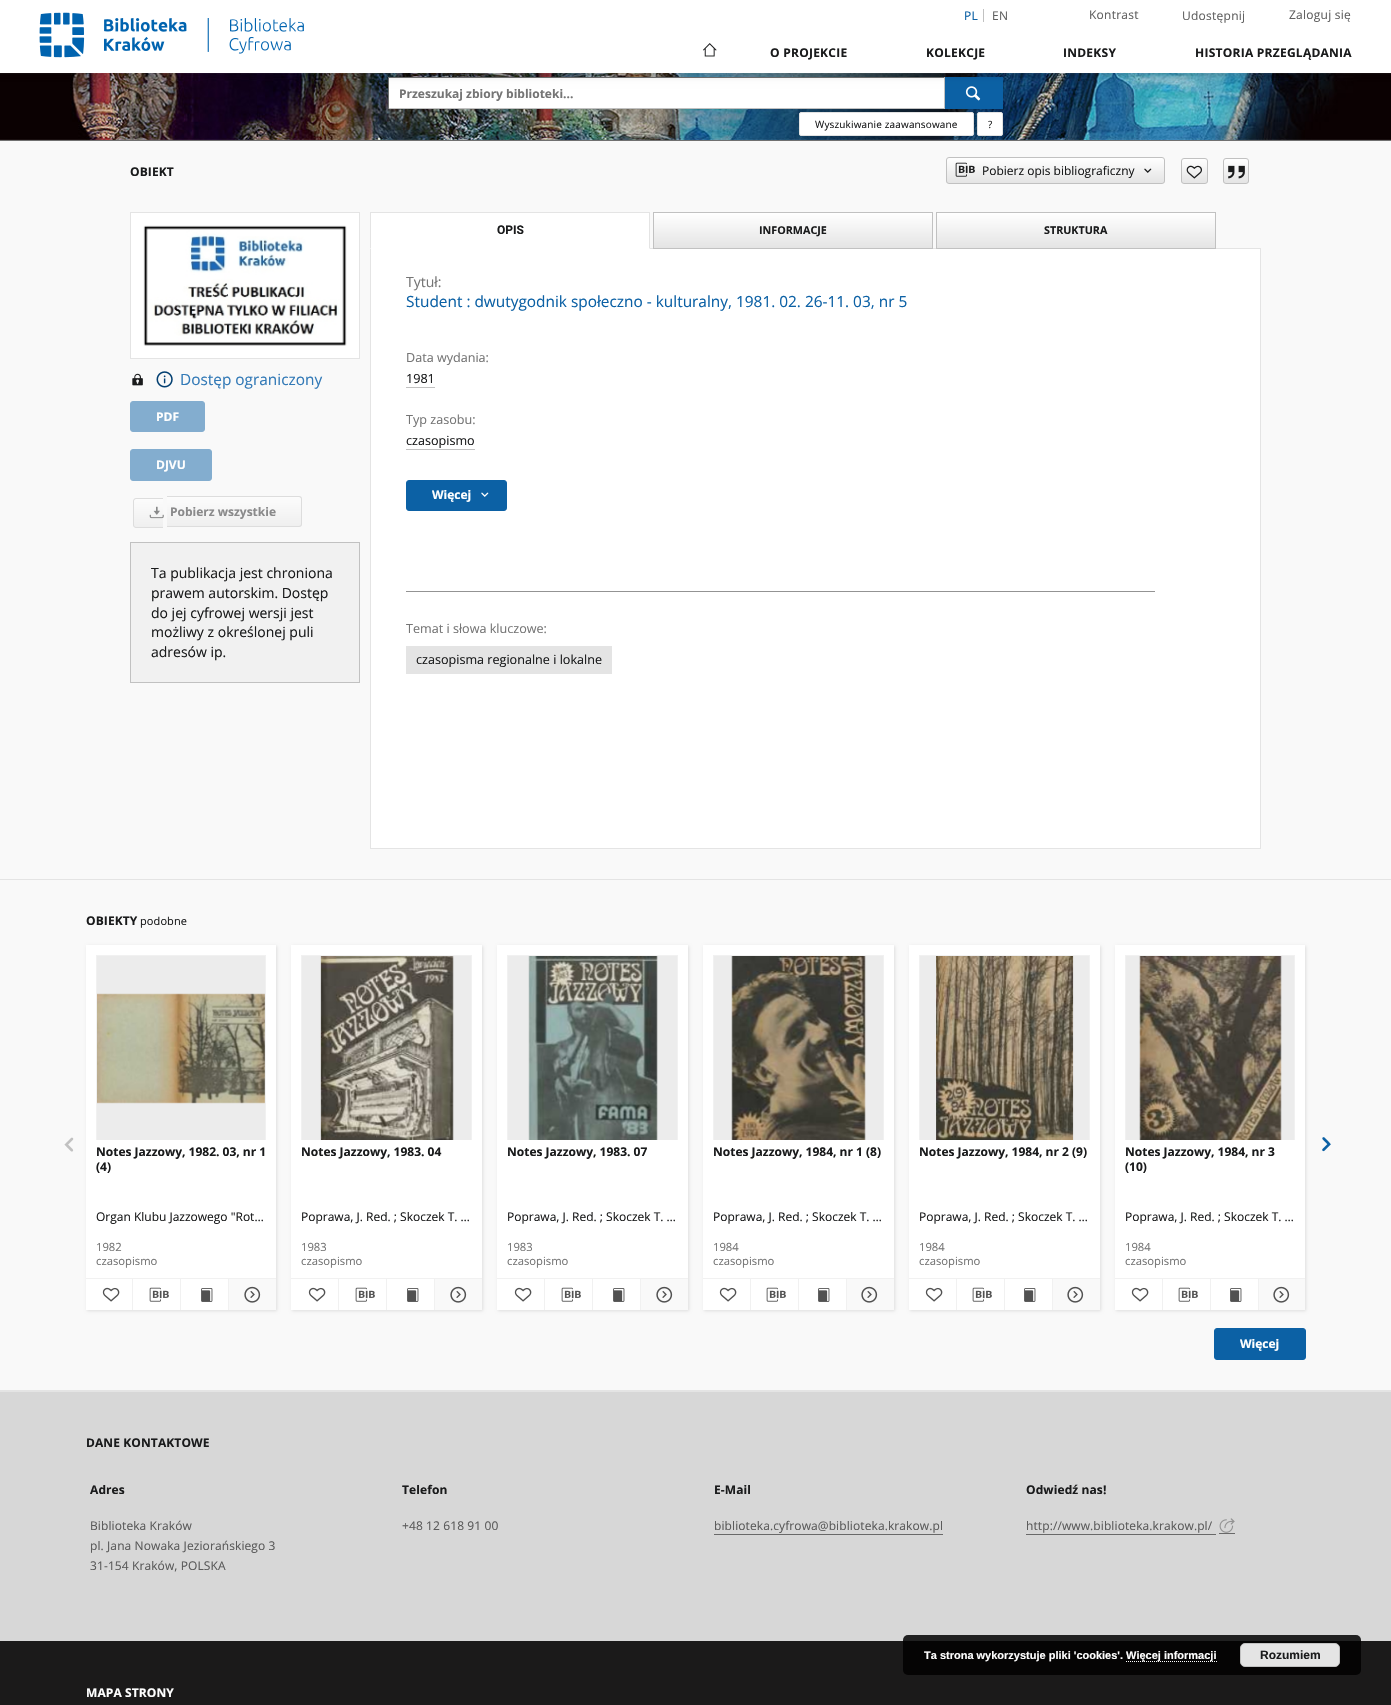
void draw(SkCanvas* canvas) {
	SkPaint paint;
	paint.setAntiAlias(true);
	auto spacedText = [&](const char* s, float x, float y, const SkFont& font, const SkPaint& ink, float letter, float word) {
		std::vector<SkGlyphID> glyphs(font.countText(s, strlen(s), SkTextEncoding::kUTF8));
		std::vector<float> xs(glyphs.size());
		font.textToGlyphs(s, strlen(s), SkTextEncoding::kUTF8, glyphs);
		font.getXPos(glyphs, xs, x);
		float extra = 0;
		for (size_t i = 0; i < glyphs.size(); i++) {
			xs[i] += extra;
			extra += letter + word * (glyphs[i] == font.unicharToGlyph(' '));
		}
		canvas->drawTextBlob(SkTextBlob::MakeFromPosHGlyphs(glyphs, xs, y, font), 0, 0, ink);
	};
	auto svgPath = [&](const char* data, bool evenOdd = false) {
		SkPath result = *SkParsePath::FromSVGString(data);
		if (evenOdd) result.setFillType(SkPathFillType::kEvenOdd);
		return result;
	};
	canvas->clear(0xfff9f9f9);
	canvas->drawImageRect(SkImages::DeferredFromEncodedData(SkData::MakeFromFileName("img3.png")), SkRect::MakeXYWH(0, 73, 1391, 67), SkSamplingOptions());
	paint.setColor(0xffffffff);
	canvas->drawRect(SkRect::MakeXYWH(389, 78, 555, 30), paint);
	paint.setColor(0xff707070);
	canvas->drawRect(SkRect::MakeXYWH(388, 77, 557, 1), paint);
	paint.setColor(0xffc1c1c1);
	canvas->drawRect(SkRect::MakeXYWH(944, 77, 1, 32), paint);
	canvas->drawRect(SkRect::MakeXYWH(388, 108, 557, 1), paint);
	paint.setColor(0xff707070);
	canvas->drawRect(SkRect::MakeXYWH(388, 77, 1, 32), paint);
	paint.setColor(0xff0c61a5);
	canvas->drawRect(SkRect::MakeXYWH(945, 77, 58, 32), paint);
	canvas->drawImageRect(SkImages::DeferredFromEncodedData(SkData::MakeFromFileName("img4.png")), SkRect::MakeXYWH(965, 86, 16, 15), SkSamplingOptions());
	paint.setColor(0x14000000);
	paint.setMaskFilter(SkMaskFilter::MakeBlur(kNormal_SkBlurStyle, 5));
	canvas->drawRect(SkRect::MakeXYWH(0, 1, 1391, 73), paint);
	paint.setMaskFilter(nullptr);
	paint.setColor(0x0f000000);
	paint.setMaskFilter(SkMaskFilter::MakeBlur(kNormal_SkBlurStyle, 2.5));
	canvas->drawRect(SkRect::MakeXYWH(0, 4, 1391, 73), paint);
	paint.setMaskFilter(nullptr);
	paint.setMaskFilter(SkMaskFilter::MakeBlur(kNormal_SkBlurStyle, 2));
	canvas->drawRect(SkRect::MakeXYWH(1, 3, 1389, 71), paint);
	paint.setMaskFilter(nullptr);
	paint.setColor(0xffffffff);
	canvas->drawRect(SkRect::MakeXYWH(0, 0, 1391, 73), paint);
	paint.setColor(0xffc1c1c1);
	canvas->drawRect(SkRect::MakeXYWH(983, 9, 1, 13), paint);
	SkFont f1(fontMgr->matchFamilyStyle("Open Sans", SkFontStyle::Normal()), 12);
	f1.setSubpixel(true);
	paint.setColor(0xff0c61a5);
	spacedText("PL", 964, 20, f1, paint, 0.25, 0);
	paint.setColor(0xff606060);
	spacedText("EN", 992, 20, f1, paint, 0.25, 0);
	spacedText("Kontrast", 1089, 19, f1, paint, 0.25, 0);
	spacedText("Udostępnij", 1182, 20, f1, paint, 0.25, 0);
	spacedText("Zaloguj się", 1289, 19, f1, paint, 0.25, 0);
	canvas->drawImageRect(SkImages::DeferredFromEncodedData(SkData::MakeFromFileName("img1.png")), SkRect::MakeXYWH(39, 12, 265, 46), SkSamplingOptions());
	canvas->drawImageRect(SkImages::DeferredFromEncodedData(SkData::MakeFromFileName("img2.png")), SkRect::MakeXYWH(703, 43, 14, 14), SkSamplingOptions());
	SkFont f2(fontMgr->matchFamilyStyle("Open Sans", SkFontStyle::Bold()), 12);
	f2.setSubpixel(true);
	paint.setColor(0xff1a1b1c);
	spacedText("O PROJEKCIE", 770, 57, f2, paint, 0.25, 0);
	spacedText("KOLEKCJE", 926, 57, f2, paint, 0.25, 0);
	spacedText("INDEKSY", 1063, 57, f2, paint, 0.25, 0);
	spacedText("HISTORIA PRZEGLĄDANIA", 1195, 57, f2, paint, 0.25, 0);
	paint.setColor(0xff707070);
	canvas->drawRect(SkRect::MakeXYWH(0, 140, 1391, 1), paint);
	paint.setColor(0xff757575);
	canvas->drawString("Przeszukaj zbiory biblioteki...", 399, 98, f2, paint);
	paint.setColor(0xffffffff);
	canvas->drawRoundRect(SkRect::MakeXYWH(799.5, 112.5, 174, 23), 1.5, 1.5, paint);
	paint.setStroke(true);
	paint.setStrokeWidth(1);
	paint.setColor(0xffe2e2e2);
	canvas->drawRoundRect(SkRect::MakeXYWH(799.5, 112.5, 174, 23), 1.5, 1.5, paint);
	SkFont f3(fontMgr->matchFamilyStyle("Open Sans", SkFontStyle::Normal()), 10);
	f3.setSubpixel(true);
	paint.setStroke(false);
	paint.setColor(0xff1a1b1c);
	spacedText("Wyszukiwanie zaawansowane", 815, 128, f3, paint, 0.15, 0);
	paint.setColor(0xffffffff);
	canvas->drawRoundRect(SkRect::MakeXYWH(977.5, 112.5, 25, 23), 1.5, 1.5, paint);
	paint.setStroke(true);
	paint.setColor(0xffe2e2e2);
	canvas->drawRoundRect(SkRect::MakeXYWH(977.5, 112.5, 25, 23), 1.5, 1.5, paint);
	paint.setStroke(false);
	paint.setColor(0xff1a1b1c);
	canvas->drawString("?", 988, 128, f3, paint);
	spacedText("OBIEKT", 130, 176, f2, paint, 0.1, 0);
	canvas->save();
	canvas->clipPath(svgPath("M949 157H1162C1163.5 157 1165 158.5 1165 160V181C1165 182.5 1163.5 184 1162 184H949C947.5 184 946 182.5 946 181V160C946 158.5 947.5 157 949 157Z"), true);
	{
		const SkColor colors[] = {0xffffffff, 0xffe4e4e4};
		const float stops[] = {0, 1};
		const SkPoint ends[] = {{1056, 158}, {1056, 183}};
		paint.setShader(SkGradientShader::MakeLinear(ends, colors, stops, 2, SkTileMode::kClamp));
		paint.setAlpha(255);
	}
	canvas->drawRect(SkRect::MakeXYWH(946, 158, 219, 25), paint);
	canvas->restore();
	paint.setStroke(true);
	paint.setShader(nullptr);
	paint.setColor(0xffc1c1c1);
	canvas->drawRoundRect(SkRect::MakeXYWH(946.5, 157.5, 218, 26), 2.5, 2.5, paint);
	canvas->drawImageRect(SkImages::DeferredFromEncodedData(SkData::MakeFromFileName("img5.png")), SkRect::MakeXYWH(955, 162, 20, 15), SkSamplingOptions());
	paint.setStroke(false);
	paint.setColor(0xff1a1b1c);
	canvas->drawString("Pobierz opis bibliograficzny", 982, 175, f1, paint);
	canvas->drawImageRect(SkImages::DeferredFromEncodedData(SkData::MakeFromFileName("img6.png")), SkRect::MakeXYWH(1144, 168, 8, 5), SkSamplingOptions());
	canvas->save();
	canvas->clipPath(svgPath("M1184 158H1205C1206.5 158 1208 159.5 1208 161V181C1208 182.5 1206.5 184 1205 184H1184C1182.5 184 1181 182.5 1181 181V161C1181 159.5 1182.5 158 1184 158Z"), true);
	{
		const SkColor colors[] = {0xffffffff, 0xffe4e4e4};
		const float stops[] = {0, 1};
		const SkPoint ends[] = {{1195, 159}, {1195, 183}};
		paint.setShader(SkGradientShader::MakeLinear(ends, colors, stops, 2, SkTileMode::kClamp));
		paint.setAlpha(255);
	}
	canvas->drawRect(SkRect::MakeXYWH(1181, 159, 27, 24), paint);
	canvas->restore();
	paint.setStroke(true);
	paint.setShader(nullptr);
	paint.setColor(0xffc1c1c1);
	canvas->drawRoundRect(SkRect::MakeXYWH(1181.5, 158.5, 26, 25), 2.5, 2.5, paint);
	canvas->drawImageRect(SkImages::DeferredFromEncodedData(SkData::MakeFromFileName("img7.png")), SkRect::MakeXYWH(1186, 165, 16, 14), SkSamplingOptions());
	canvas->save();
	canvas->clipPath(svgPath("M1226 158H1246C1247.5 158 1249 159.5 1249 161V181C1249 182.5 1247.5 184 1246 184H1226C1224.5 184 1223 182.5 1223 181V161C1223 159.5 1224.5 158 1226 158Z"), true);
	paint.setStroke(false);
	{
		const SkColor colors[] = {0xffffffff, 0xffe4e4e4};
		const float stops[] = {0, 1};
		const SkPoint ends[] = {{1236, 159}, {1236, 183}};
		paint.setShader(SkGradientShader::MakeLinear(ends, colors, stops, 2, SkTileMode::kClamp));
		paint.setAlpha(255);
	}
	canvas->drawRect(SkRect::MakeXYWH(1223, 159, 26, 24), paint);
	canvas->restore();
	paint.setStroke(true);
	paint.setShader(nullptr);
	paint.setColor(0xffc1c1c1);
	canvas->drawRoundRect(SkRect::MakeXYWH(1223.5, 158.5, 25, 25), 2.5, 2.5, paint);
	canvas->drawImageRect(SkImages::DeferredFromEncodedData(SkData::MakeFromFileName("img8.png")), SkRect::MakeXYWH(1228, 165, 17, 14), SkSamplingOptions());
	paint.setStroke(false);
	paint.setColor(0xffffffff);
	canvas->drawRect(SkRect::MakeXYWH(130.5, 212.5, 229, 146), paint);
	paint.setStroke(true);
	paint.setColor(0xffe4e4e4);
	canvas->drawRect(SkRect::MakeXYWH(130.5, 212.5, 229, 146), paint);
	canvas->drawImageRect(SkImages::DeferredFromEncodedData(SkData::MakeFromFileName("img9.png")), SkRect::MakeXYWH(143, 225, 204, 121), SkSamplingOptions());
	canvas->drawImageRect(SkImages::DeferredFromEncodedData(SkData::MakeFromFileName("img10.png")), SkRect::MakeXYWH(132, 373, 11, 13), SkSamplingOptions());
	canvas->drawImageRect(SkImages::DeferredFromEncodedData(SkData::MakeFromFileName("img11.png")), SkRect::MakeXYWH(156, 371, 17, 17), SkSamplingOptions());
	SkFont f4(fontMgr->matchFamilyStyle("Open Sans", SkFontStyle::Normal()), 15.4);
	f4.setSubpixel(true);
	paint.setStroke(false);
	paint.setColor(0xff337ab7);
	canvas->drawString("Dostęp ograniczony", 180, 385, f4, paint);
	paint.setColor(0xff83adcf);
	canvas->drawRoundRect(SkRect::MakeXYWH(130.5, 401.5, 74, 30), 2.5, 2.5, paint);
	paint.setStroke(true);
	canvas->drawRoundRect(SkRect::MakeXYWH(130.5, 401.5, 74, 30), 2.5, 2.5, paint);
	paint.setStroke(false);
	paint.setColor(0xffffffff);
	canvas->drawString("PDF", 156, 421, f2, paint);
	paint.setColor(0xff83adcf);
	canvas->drawRoundRect(SkRect::MakeXYWH(130.5, 449.5, 81, 31), 2.5, 2.5, paint);
	paint.setStroke(true);
	canvas->drawRoundRect(SkRect::MakeXYWH(130.5, 449.5, 81, 31), 2.5, 2.5, paint);
	paint.setStroke(false);
	paint.setColor(0xffffffff);
	canvas->drawString("DJVU", 156, 469, f2, paint);
	canvas->save();
	canvas->clipPath(svgPath("M136 498H163V528H136C134.5 528 133 526.5 133 525V501C133 499.5 134.5 498 136 498Z"), true);
	{
		const SkColor colors[] = {0xfffcfcfc, 0xffefefef};
		const float stops[] = {0, 1};
		const SkPoint ends[] = {{149, 499}, {149, 527}};
		paint.setShader(SkGradientShader::MakeLinear(ends, colors, stops, 2, SkTileMode::kClamp));
		paint.setAlpha(255);
	}
	canvas->drawRect(SkRect::MakeXYWH(133, 499, 30, 28), paint);
	canvas->restore();
	paint.setShader(nullptr);
	paint.setColor(0xffdddddd);
	canvas->drawPath(svgPath("M136 498H163V528H136C134.5 528 133 526.5 133 525V501C133 499.5 134.5 498 136 498ZM136 499H163V527H136C135 527 134 526 134 525V501C134 500 135 499 136 499Z", true), paint);
	canvas->save();
	canvas->clipPath(svgPath("M167 496H299C300.5 496 302 497.5 302 499V524C302 525.5 300.5 527 299 527H167Z"), true);
	{
		const SkColor colors[] = {0xfffcfcfc, 0xffefefef};
		const float stops[] = {0, 1};
		const SkPoint ends[] = {{234, 497}, {234, 526}};
		paint.setShader(SkGradientShader::MakeLinear(ends, colors, stops, 2, SkTileMode::kClamp));
		paint.setAlpha(255);
	}
	canvas->drawRect(SkRect::MakeXYWH(167, 497, 135, 29), paint);
	canvas->restore();
	paint.setShader(nullptr);
	paint.setColor(0xffdddddd);
	canvas->drawPath(svgPath("M167 496H299C301 496 302 497 302 499V524C302 526 301 527 299 527H167ZM167 497H299C300 497 301 498 301 499V524C301 525 300 526 299 526H167Z", true), paint);
	canvas->drawImageRect(SkImages::DeferredFromEncodedData(SkData::MakeFromFileName("img12.png")), SkRect::MakeXYWH(149, 506, 15, 13), SkSamplingOptions());
	paint.setColor(0xff8a8a8b);
	canvas->drawString("Pobierz wszystkie", 170, 516, f2, paint);
	paint.setColor(0xfff1f1f1);
	canvas->drawRect(SkRect::MakeXYWH(130.5, 542.5, 229, 140), paint);
	paint.setStroke(true);
	paint.setColor(0xffc1c1c1);
	canvas->drawRect(SkRect::MakeXYWH(130.5, 542.5, 229, 140), paint);
	SkFont f5(fontMgr->matchFamilyStyle("Open Sans", SkFontStyle::Normal()), 14);
	f5.setSubpixel(true);
	paint.setStroke(false);
	paint.setColor(0xff1a1b1c);
	canvas->drawString("Ta publikacja jest chroniona", 151, 578, f5, paint);
	canvas->drawString("prawem autorskim. Dostęp", 151, 598, f5, paint);
	canvas->drawString("do jej cyfrowej wersji jest", 151, 618, f5, paint);
	canvas->drawString("możliwy z określonej puli", 151, 637, f5, paint);
	canvas->drawString("adresów ip.", 151, 657, f5, paint);
	paint.setColor(0xffe4e4e4);
	canvas->drawRect(SkRect::MakeXYWH(650, 248, 611, 1), paint);
	paint.setColor(0xffffffff);
	canvas->drawRect(SkRect::MakeXYWH(370, 213, 280, 36), paint);
	paint.setColor(0xffe4e4e4);
	canvas->drawRect(SkRect::MakeXYWH(370, 212, 280, 1), paint);
	canvas->drawPath(svgPath("M650 212V249L649 248V213Z"), paint);
	canvas->drawPath(svgPath("M370 249V212L371 213V248Z"), paint);
	SkFont f6(fontMgr->matchFamilyStyle("Roboto", SkFontStyle::Bold()), 12);
	f6.setSubpixel(true);
	paint.setColor(0xff1a1b1c);
	canvas->drawString("OPIS", 497, 234, f6, paint);
	{
		const SkColor colors[] = {0xffffffff, 0xffe4e4e4};
		const float stops[] = {0, 1};
		const SkPoint ends[] = {{793, 213}, {793, 248}};
		paint.setShader(SkGradientShader::MakeLinear(ends, colors, stops, 2, SkTileMode::kClamp));
		paint.setAlpha(255);
	}
	canvas->drawRect(SkRect::MakeXYWH(654, 213, 278, 35), paint);
	paint.setStroke(true);
	paint.setShader(nullptr);
	paint.setColor(0xffc1c1c1);
	canvas->drawRect(SkRect::MakeXYWH(653.5, 212.5, 279, 36), paint);
	SkFont f7(fontMgr->matchFamilyStyle("Open Sans", SkFontStyle::Bold()), 10.75);
	f7.setSubpixel(true);
	paint.setStroke(false);
	paint.setColor(0xff1a1b1c);
	canvas->drawString("INFORMACJE", 759, 234, f7, paint);
	{
		const SkColor colors[] = {0xffffffff, 0xffe4e4e4};
		const float stops[] = {0, 1};
		const SkPoint ends[] = {{1076, 213}, {1076, 248}};
		paint.setShader(SkGradientShader::MakeLinear(ends, colors, stops, 2, SkTileMode::kClamp));
		paint.setAlpha(255);
	}
	canvas->drawRect(SkRect::MakeXYWH(937, 213, 278, 35), paint);
	paint.setStroke(true);
	paint.setShader(nullptr);
	paint.setColor(0xffc1c1c1);
	canvas->drawRect(SkRect::MakeXYWH(936.5, 212.5, 279, 36), paint);
	paint.setStroke(false);
	paint.setColor(0xff1a1b1c);
	canvas->drawString("STRUKTURA", 1044, 234, f7, paint);
	paint.setColor(0xffffffff);
	canvas->drawRect(SkRect::MakeXYWH(371, 249, 889, 599), paint);
	paint.setColor(0xffe4e4e4);
	canvas->drawRect(SkRect::MakeXYWH(1260, 249, 1, 600), paint);
	canvas->drawRect(SkRect::MakeXYWH(370, 848, 891, 1), paint);
	canvas->drawRect(SkRect::MakeXYWH(370, 249, 1, 600), paint);
	paint.setColor(0xff757575);
	canvas->drawString("Tytuł:", 406, 287, f5, paint);
	paint.setColor(0xff0c61a5);
	canvas->drawString("Student : dwutygodnik społeczno - kulturalny, 1981. 02. 26-11. 03, nr 5", 406, 307, f4, paint);
	SkFont f8(fontMgr->matchFamilyStyle("Open Sans", SkFontStyle::Normal()), 12.6);
	f8.setSubpixel(true);
	paint.setColor(0xff757575);
	canvas->drawString("Data wydania:", 406, 362, f8, paint);
	paint.setColor(0xff1a1b1c);
	canvas->drawString("1981", 406, 383, f8, paint);
	paint.setColor(0xffc1c1c1);
	canvas->drawRect(SkRect::MakeXYWH(406, 387, 29, 1), paint);
	paint.setColor(0xff757575);
	canvas->drawString("Typ zasobu:", 406, 424, f8, paint);
	paint.setColor(0xff1a1b1c);
	canvas->drawString("czasopismo", 406, 445, f8, paint);
	paint.setColor(0xffc1c1c1);
	canvas->drawRect(SkRect::MakeXYWH(406, 449, 69, 1), paint);
	paint.setColor(0xff0c61a5);
	canvas->drawRoundRect(SkRect::MakeXYWH(406.5, 480.5, 100, 30), 2.5, 2.5, paint);
	paint.setStroke(true);
	canvas->drawRoundRect(SkRect::MakeXYWH(406.5, 480.5, 100, 30), 2.5, 2.5, paint);
	paint.setStroke(false);
	paint.setColor(0xffffffff);
	canvas->drawString("Więcej", 432, 499, f2, paint);
	canvas->drawImageRect(SkImages::DeferredFromEncodedData(SkData::MakeFromFileName("img13.png")), SkRect::MakeXYWH(481, 492, 8, 5), SkSamplingOptions());
	paint.setColor(0xff939393);
	canvas->drawRect(SkRect::MakeXYWH(406, 591, 749, 1), paint);
	paint.setColor(0xff757575);
	canvas->drawString("Temat i słowa kluczowe:", 406, 633, f8, paint);
	paint.setColor(0xffe4e4e4);
	canvas->drawRect(SkRect::MakeXYWH(406, 646, 206, 28), paint);
	paint.setColor(0xff1a1b1c);
	canvas->drawString("czasopisma regionalne i lokalne", 416, 664, f8, paint);
	paint.setColor(0xffe4e4e4);
	canvas->drawRect(SkRect::MakeXYWH(0, 879, 1391, 1), paint);
	canvas->drawRect(SkRect::MakeXYWH(0, 1390, 1391, 1), paint);
	paint.setColor(0xff1a1b1c);
	spacedText("OBIEKTY", 86, 925, f2, paint, 0.1, 0);
	SkFont f9(fontMgr->matchFamilyStyle("Open Sans", SkFontStyle::Normal()), 11);
	f9.setSubpixel(true);
	spacedText("podobne", 140, 925, f9, paint, 0.1, 0);
	canvas->drawImageRect(SkImages::DeferredFromEncodedData(SkData::MakeFromFileName("img14.png")), SkRect::MakeXYWH(64, 1137, 10, 15), SkSamplingOptions());
	canvas->drawImageRect(SkImages::DeferredFromEncodedData(SkData::MakeFromFileName("img15.png")), SkRect::MakeXYWH(1322, 1137, 9, 15), SkSamplingOptions());
	paint.setColor(0xffdedede);
	paint.setMaskFilter(SkMaskFilter::MakeBlur(kNormal_SkBlurStyle, 1.5));
	canvas->drawRect(SkRect::MakeXYWH(87, 946, 190, 365), paint);
	paint.setMaskFilter(nullptr);
	paint.setColor(0xffffffff);
	canvas->drawRect(SkRect::MakeXYWH(86, 945, 190, 365), paint);
	paint.setColor(0xffececec);
	canvas->drawRect(SkRect::MakeXYWH(97, 956, 168, 184), paint);
	paint.setStroke(true);
	paint.setColor(0xfff1f1f1);
	canvas->drawRect(SkRect::MakeXYWH(96.5, 955.5, 169, 194), paint);
	canvas->drawImageRect(SkImages::DeferredFromEncodedData(SkData::MakeFromFileName("img16.png")), SkRect::MakeXYWH(97, 993, 168, 111), SkSamplingOptions());
	paint.setStroke(false);
	paint.setColor(0xffffffff);
	canvas->drawRect(SkRect::MakeXYWH(96, 1140, 170, 10), paint);
	paint.setColor(0xff1a1b1c);
	canvas->drawString("Notes Jazzowy, 1982. 03, nr 1", 96, 1156, f2, paint);
	canvas->drawString("(4)", 96, 1171, f2, paint);
	canvas->drawString("Organ Klubu Jazzowego \"Rot…", 96, 1221, f1, paint);
	SkFont f10(fontMgr->matchFamilyStyle("Open Sans", SkFontStyle::Normal()), 11.25);
	f10.setSubpixel(true);
	paint.setColor(0xff757575);
	canvas->drawString("1982", 96, 1251, f10, paint);
	canvas->drawString("czasopismo", 96, 1265, f10, paint);
	paint.setColor(0xfff1f1f1);
	canvas->drawRect(SkRect::MakeXYWH(86, 1278, 190, 1), paint);
	canvas->drawRect(SkRect::MakeXYWH(132, 1279, 1, 31), paint);
	canvas->drawImageRect(SkImages::DeferredFromEncodedData(SkData::MakeFromFileName("img17.png")), SkRect::MakeXYWH(102, 1287, 18, 15), SkSamplingOptions());
	canvas->drawRect(SkRect::MakeXYWH(180, 1279, 1, 31), paint);
	canvas->drawImageRect(SkImages::DeferredFromEncodedData(SkData::MakeFromFileName("img18.png")), SkRect::MakeXYWH(149, 1287, 20, 15), SkSamplingOptions());
	canvas->drawRect(SkRect::MakeXYWH(228, 1279, 1, 31), paint);
	canvas->drawImageRect(SkImages::DeferredFromEncodedData(SkData::MakeFromFileName("img19.png")), SkRect::MakeXYWH(201, 1288, 12, 14), SkSamplingOptions());
	paint.setColor(0xfff9f9f9);
	canvas->drawRect(SkRect::MakeXYWH(229, 1279, 47, 31), paint);
	canvas->drawImageRect(SkImages::DeferredFromEncodedData(SkData::MakeFromFileName("img20.png")), SkRect::MakeXYWH(244, 1286, 17, 17), SkSamplingOptions());
	paint.setColor(0xffdedede);
	paint.setMaskFilter(SkMaskFilter::MakeBlur(kNormal_SkBlurStyle, 1.5));
	canvas->drawRect(SkRect::MakeXYWH(292, 946, 191, 365), paint);
	paint.setMaskFilter(nullptr);
	paint.setColor(0xffffffff);
	canvas->drawRect(SkRect::MakeXYWH(291, 945, 191, 365), paint);
	paint.setColor(0xffececec);
	canvas->drawRect(SkRect::MakeXYWH(302, 956, 169, 184), paint);
	paint.setStroke(true);
	paint.setColor(0xfff1f1f1);
	canvas->drawRect(SkRect::MakeXYWH(301.5, 955.5, 170, 194), paint);
	canvas->drawImageRect(SkImages::DeferredFromEncodedData(SkData::MakeFromFileName("img21.png")), SkRect::MakeXYWH(320, 956, 134, 184), SkSamplingOptions());
	paint.setStroke(false);
	paint.setColor(0xffffffff);
	canvas->drawRect(SkRect::MakeXYWH(301, 1140, 171, 10), paint);
	paint.setColor(0xff1a1b1c);
	canvas->drawString("Notes Jazzowy, 1983. 04", 301, 1156, f2, paint);
	canvas->drawString("Poprawa, J. Red. ; Skoczek T. …", 301, 1221, f1, paint);
	paint.setColor(0xff757575);
	canvas->drawString("1983", 301, 1251, f10, paint);
	canvas->drawString("czasopismo", 301, 1265, f10, paint);
	paint.setColor(0xfff1f1f1);
	canvas->drawRect(SkRect::MakeXYWH(291, 1278, 191, 1), paint);
	canvas->drawRect(SkRect::MakeXYWH(338, 1279, 1, 31), paint);
	canvas->drawImageRect(SkImages::DeferredFromEncodedData(SkData::MakeFromFileName("img17.png")), SkRect::MakeXYWH(308, 1287, 18, 15), SkSamplingOptions());
	canvas->drawRect(SkRect::MakeXYWH(386, 1279, 1, 31), paint);
	canvas->drawImageRect(SkImages::DeferredFromEncodedData(SkData::MakeFromFileName("img18.png")), SkRect::MakeXYWH(355, 1287, 20, 15), SkSamplingOptions());
	canvas->drawRect(SkRect::MakeXYWH(434, 1279, 1, 31), paint);
	canvas->drawImageRect(SkImages::DeferredFromEncodedData(SkData::MakeFromFileName("img19.png")), SkRect::MakeXYWH(407, 1288, 12, 14), SkSamplingOptions());
	paint.setColor(0xfff9f9f9);
	canvas->drawRect(SkRect::MakeXYWH(435, 1279, 47, 31), paint);
	canvas->drawImageRect(SkImages::DeferredFromEncodedData(SkData::MakeFromFileName("img20.png")), SkRect::MakeXYWH(450, 1286, 17, 17), SkSamplingOptions());
	paint.setColor(0xffdedede);
	paint.setMaskFilter(SkMaskFilter::MakeBlur(kNormal_SkBlurStyle, 1.5));
	canvas->drawRect(SkRect::MakeXYWH(498, 946, 191, 365), paint);
	paint.setMaskFilter(nullptr);
	paint.setColor(0xffffffff);
	canvas->drawRect(SkRect::MakeXYWH(497, 945, 191, 365), paint);
	paint.setColor(0xffececec);
	canvas->drawRect(SkRect::MakeXYWH(508, 956, 169, 184), paint);
	paint.setStroke(true);
	paint.setColor(0xfff1f1f1);
	canvas->drawRect(SkRect::MakeXYWH(507.5, 955.5, 170, 194), paint);
	canvas->drawImageRect(SkImages::DeferredFromEncodedData(SkData::MakeFromFileName("img22.png")), SkRect::MakeXYWH(528, 956, 130, 184), SkSamplingOptions());
	paint.setStroke(false);
	paint.setColor(0xffffffff);
	canvas->drawRect(SkRect::MakeXYWH(507, 1140, 171, 10), paint);
	paint.setColor(0xff1a1b1c);
	canvas->drawString("Notes Jazzowy, 1983. 07", 507, 1156, f2, paint);
	canvas->drawString("Poprawa, J. Red. ; Skoczek T. …", 507, 1221, f1, paint);
	paint.setColor(0xff757575);
	canvas->drawString("1983", 507, 1251, f10, paint);
	canvas->drawString("czasopismo", 507, 1265, f10, paint);
	paint.setColor(0xfff1f1f1);
	canvas->drawRect(SkRect::MakeXYWH(497, 1278, 191, 1), paint);
	canvas->drawRect(SkRect::MakeXYWH(544, 1279, 1, 31), paint);
	canvas->drawImageRect(SkImages::DeferredFromEncodedData(SkData::MakeFromFileName("img17.png")), SkRect::MakeXYWH(514, 1287, 18, 15), SkSamplingOptions());
	canvas->drawRect(SkRect::MakeXYWH(592, 1279, 1, 31), paint);
	canvas->drawImageRect(SkImages::DeferredFromEncodedData(SkData::MakeFromFileName("img18.png")), SkRect::MakeXYWH(561, 1287, 20, 15), SkSamplingOptions());
	canvas->drawRect(SkRect::MakeXYWH(640, 1279, 1, 31), paint);
	canvas->drawImageRect(SkImages::DeferredFromEncodedData(SkData::MakeFromFileName("img19.png")), SkRect::MakeXYWH(613, 1288, 12, 14), SkSamplingOptions());
	paint.setColor(0xfff9f9f9);
	canvas->drawRect(SkRect::MakeXYWH(641, 1279, 47, 31), paint);
	canvas->drawImageRect(SkImages::DeferredFromEncodedData(SkData::MakeFromFileName("img20.png")), SkRect::MakeXYWH(656, 1286, 17, 17), SkSamplingOptions());
	paint.setColor(0xffdedede);
	paint.setMaskFilter(SkMaskFilter::MakeBlur(kNormal_SkBlurStyle, 1.5));
	canvas->drawRect(SkRect::MakeXYWH(704, 946, 191, 365), paint);
	paint.setMaskFilter(nullptr);
	paint.setColor(0xffffffff);
	canvas->drawRect(SkRect::MakeXYWH(703, 945, 191, 365), paint);
	paint.setColor(0xffececec);
	canvas->drawRect(SkRect::MakeXYWH(714, 956, 169, 184), paint);
	paint.setStroke(true);
	paint.setColor(0xfff1f1f1);
	canvas->drawRect(SkRect::MakeXYWH(713.5, 955.5, 170, 194), paint);
	canvas->drawImageRect(SkImages::DeferredFromEncodedData(SkData::MakeFromFileName("img23.png")), SkRect::MakeXYWH(731, 956, 135, 184), SkSamplingOptions());
	paint.setStroke(false);
	paint.setColor(0xffffffff);
	canvas->drawRect(SkRect::MakeXYWH(713, 1140, 171, 10), paint);
	paint.setColor(0xff1a1b1c);
	canvas->drawString("Notes Jazzowy, 1984, nr 1 (8)", 713, 1156, f2, paint);
	canvas->drawString("Poprawa, J. Red. ; Skoczek T. …", 713, 1221, f1, paint);
	paint.setColor(0xff757575);
	canvas->drawString("1984", 713, 1251, f10, paint);
	canvas->drawString("czasopismo", 713, 1265, f10, paint);
	paint.setColor(0xfff1f1f1);
	canvas->drawRect(SkRect::MakeXYWH(703, 1278, 191, 1), paint);
	canvas->drawRect(SkRect::MakeXYWH(750, 1279, 1, 31), paint);
	canvas->drawImageRect(SkImages::DeferredFromEncodedData(SkData::MakeFromFileName("img17.png")), SkRect::MakeXYWH(719, 1287, 18, 15), SkSamplingOptions());
	canvas->drawRect(SkRect::MakeXYWH(798, 1279, 1, 31), paint);
	canvas->drawImageRect(SkImages::DeferredFromEncodedData(SkData::MakeFromFileName("img18.png")), SkRect::MakeXYWH(766, 1287, 20, 15), SkSamplingOptions());
	canvas->drawRect(SkRect::MakeXYWH(846, 1279, 1, 31), paint);
	canvas->drawImageRect(SkImages::DeferredFromEncodedData(SkData::MakeFromFileName("img19.png")), SkRect::MakeXYWH(818, 1288, 12, 14), SkSamplingOptions());
	paint.setColor(0xfff9f9f9);
	canvas->drawRect(SkRect::MakeXYWH(847, 1279, 47, 31), paint);
	canvas->drawImageRect(SkImages::DeferredFromEncodedData(SkData::MakeFromFileName("img20.png")), SkRect::MakeXYWH(861, 1286, 17, 17), SkSamplingOptions());
	paint.setColor(0xffdedede);
	paint.setMaskFilter(SkMaskFilter::MakeBlur(kNormal_SkBlurStyle, 1.5));
	canvas->drawRect(SkRect::MakeXYWH(910, 946, 191, 365), paint);
	paint.setMaskFilter(nullptr);
	paint.setColor(0xffffffff);
	canvas->drawRect(SkRect::MakeXYWH(909, 945, 191, 365), paint);
	paint.setColor(0xffececec);
	canvas->drawRect(SkRect::MakeXYWH(920, 956, 169, 184), paint);
	paint.setStroke(true);
	paint.setColor(0xfff1f1f1);
	canvas->drawRect(SkRect::MakeXYWH(919.5, 955.5, 170, 194), paint);
	canvas->drawImageRect(SkImages::DeferredFromEncodedData(SkData::MakeFromFileName("img24.png")), SkRect::MakeXYWH(936, 956, 138, 184), SkSamplingOptions());
	paint.setStroke(false);
	paint.setColor(0xffffffff);
	canvas->drawRect(SkRect::MakeXYWH(919, 1140, 171, 10), paint);
	paint.setColor(0xff1a1b1c);
	canvas->drawString("Notes Jazzowy, 1984, nr 2 (9)", 919, 1156, f2, paint);
	canvas->drawString("Poprawa, J. Red. ; Skoczek T. …", 919, 1221, f1, paint);
	paint.setColor(0xff757575);
	canvas->drawString("1984", 919, 1251, f10, paint);
	canvas->drawString("czasopismo", 919, 1265, f10, paint);
	paint.setColor(0xfff1f1f1);
	canvas->drawRect(SkRect::MakeXYWH(909, 1278, 191, 1), paint);
	canvas->drawRect(SkRect::MakeXYWH(956, 1279, 1, 31), paint);
	canvas->drawImageRect(SkImages::DeferredFromEncodedData(SkData::MakeFromFileName("img17.png")), SkRect::MakeXYWH(925, 1287, 18, 15), SkSamplingOptions());
	canvas->drawRect(SkRect::MakeXYWH(1004, 1279, 1, 31), paint);
	canvas->drawImageRect(SkImages::DeferredFromEncodedData(SkData::MakeFromFileName("img18.png")), SkRect::MakeXYWH(972, 1287, 20, 15), SkSamplingOptions());
	canvas->drawRect(SkRect::MakeXYWH(1052, 1279, 1, 31), paint);
	canvas->drawImageRect(SkImages::DeferredFromEncodedData(SkData::MakeFromFileName("img19.png")), SkRect::MakeXYWH(1024, 1288, 12, 14), SkSamplingOptions());
	paint.setColor(0xfff9f9f9);
	canvas->drawRect(SkRect::MakeXYWH(1053, 1279, 47, 31), paint);
	canvas->drawImageRect(SkImages::DeferredFromEncodedData(SkData::MakeFromFileName("img20.png")), SkRect::MakeXYWH(1067, 1286, 17, 17), SkSamplingOptions());
	paint.setColor(0xffdedede);
	paint.setMaskFilter(SkMaskFilter::MakeBlur(kNormal_SkBlurStyle, 1.5));
	canvas->drawRect(SkRect::MakeXYWH(1116, 946, 190, 365), paint);
	paint.setMaskFilter(nullptr);
	paint.setColor(0xffffffff);
	canvas->drawRect(SkRect::MakeXYWH(1115, 945, 190, 365), paint);
	paint.setColor(0xffececec);
	canvas->drawRect(SkRect::MakeXYWH(1126, 956, 168, 184), paint);
	paint.setStroke(true);
	paint.setColor(0xfff1f1f1);
	canvas->drawRect(SkRect::MakeXYWH(1125.5, 955.5, 169, 194), paint);
	canvas->drawImageRect(SkImages::DeferredFromEncodedData(SkData::MakeFromFileName("img25.png")), SkRect::MakeXYWH(1139, 956, 143, 184), SkSamplingOptions());
	paint.setStroke(false);
	paint.setColor(0xffffffff);
	canvas->drawRect(SkRect::MakeXYWH(1125, 1140, 170, 10), paint);
	paint.setColor(0xff1a1b1c);
	canvas->drawString("Notes Jazzowy, 1984, nr 3", 1125, 1156, f2, paint);
	canvas->drawString("(10)", 1125, 1171, f2, paint);
	canvas->drawString("Poprawa, J. Red. ; Skoczek T. …", 1125, 1221, f1, paint);
	paint.setColor(0xff757575);
	canvas->drawString("1984", 1125, 1251, f10, paint);
	canvas->drawString("czasopismo", 1125, 1265, f10, paint);
	paint.setColor(0xfff1f1f1);
	canvas->drawRect(SkRect::MakeXYWH(1115, 1278, 190, 1), paint);
	canvas->drawRect(SkRect::MakeXYWH(1162, 1279, 1, 31), paint);
	canvas->drawImageRect(SkImages::DeferredFromEncodedData(SkData::MakeFromFileName("img17.png")), SkRect::MakeXYWH(1131, 1287, 18, 15), SkSamplingOptions());
	canvas->drawRect(SkRect::MakeXYWH(1210, 1279, 1, 31), paint);
	canvas->drawImageRect(SkImages::DeferredFromEncodedData(SkData::MakeFromFileName("img18.png")), SkRect::MakeXYWH(1178, 1287, 20, 15), SkSamplingOptions());
	canvas->drawRect(SkRect::MakeXYWH(1258, 1279, 1, 31), paint);
	canvas->drawImageRect(SkImages::DeferredFromEncodedData(SkData::MakeFromFileName("img19.png")), SkRect::MakeXYWH(1230, 1288, 12, 14), SkSamplingOptions());
	paint.setColor(0xfff9f9f9);
	canvas->drawRect(SkRect::MakeXYWH(1259, 1279, 46, 31), paint);
	canvas->drawImageRect(SkImages::DeferredFromEncodedData(SkData::MakeFromFileName("img20.png")), SkRect::MakeXYWH(1273, 1286, 17, 17), SkSamplingOptions());
	paint.setColor(0xff0c61a5);
	canvas->drawRoundRect(SkRect::MakeXYWH(1214.5, 1328.5, 91, 31), 2.5, 2.5, paint);
	paint.setStroke(true);
	canvas->drawRoundRect(SkRect::MakeXYWH(1214.5, 1328.5, 91, 31), 2.5, 2.5, paint);
	paint.setStroke(false);
	paint.setColor(0xffffffff);
	canvas->drawString("Więcej", 1240, 1348, f2, paint);
	paint.setColor(0xffd7d7d7);
	canvas->drawRect(SkRect::MakeXYWH(0, 1392, 1391, 249), paint);
	paint.setColor(0xffe4e4e4);
	canvas->drawRect(SkRect::MakeXYWH(0, 1391, 1391, 1), paint);
	paint.setColor(0xff1a1b1c);
	spacedText("DANE KONTAKTOWE", 86, 1447, f2, paint, 0.1, 0);
	spacedText("Adres", 90, 1494, f2, paint, 0.1, 0);
	paint.setColor(0xff5a5a5a);
	spacedText("Biblioteka Kraków", 90, 1530, f1, paint, 0.1, 0);
	spacedText("pl. Jana Nowaka Jeziorańskiego 3", 90, 1550, f1, paint, 0.1, 0);
	spacedText("31-154 Kraków, POLSKA", 90, 1570, f1, paint, 0.1, 0);
	paint.setColor(0xff1a1b1c);
	spacedText("Telefon", 402, 1494, f2, paint, 0.1, 0);
	paint.setColor(0xff5a5a5a);
	spacedText("+48 12 618 91 00", 402, 1530, f1, paint, 0.1, 0);
	paint.setColor(0xff1a1b1c);
	spacedText("E-Mail", 714, 1494, f2, paint, 0.1, 0);
	paint.setColor(0xff5a5a5a);
	spacedText("biblioteka.cyfrowa@biblioteka.krakow.pl", 714, 1530, f1, paint, 0.1, 0);
	paint.setColor(0xff696969);
	canvas->drawRect(SkRect::MakeXYWH(714, 1534, 229, 1), paint);
	paint.setColor(0xff1a1b1c);
	spacedText("Odwiedź nas!", 1026, 1494, f2, paint, 0.1, 0);
	paint.setColor(0xff5a5a5a);
	spacedText("http://www.biblioteka.krakow.pl/", 1026, 1530, f1, paint, 0.1, 0);
	paint.setColor(0xff696969);
	canvas->drawRect(SkRect::MakeXYWH(1026, 1534, 190, 1), paint);
	canvas->drawRect(SkRect::MakeXYWH(1219, 1533, 16, 1), paint);
	canvas->drawImageRect(SkImages::DeferredFromEncodedData(SkData::MakeFromFileName("img26.png")), SkRect::MakeXYWH(1219, 1518, 16, 15), SkSamplingOptions());
	paint.setColor(0xff1b1a1a);
	canvas->drawRect(SkRect::MakeXYWH(0, 1641, 1391, 64), paint);
	paint.setColor(0xd9000000);
	canvas->drawRoundRect(SkRect::MakeXYWH(903, 1635, 458, 40), 5, 5, paint);
	SkFont f11(fontMgr->matchFamilyStyle("Liberation Sans", SkFontStyle::Bold()), 11);
	f11.setSubpixel(true);
	paint.setColor(0xffffffff);
	canvas->drawString("Ta strona wykorzystuje pliki 'cookies'.", 924, 1659, f11, paint);
	paint.setStroke(true);
	paint.setPathEffect(SkDashPathEffect::Make({{1, 1}}, 0));
	canvas->drawPath(svgPath("M1126 1661.5H1217"), paint);
	paint.setPathEffect(nullptr);
	paint.setStroke(false);
	canvas->drawString("Więcej informacji", 1126, 1659, f11, paint);
	paint.setColor(0xffe4e4e4);
	canvas->drawRoundRect(SkRect::MakeXYWH(1240.5, 1643.5, 99, 23), 4.5, 4.5, paint);
	paint.setStroke(true);
	paint.setColor(0xffc1c1c1);
	canvas->drawRoundRect(SkRect::MakeXYWH(1240.5, 1643.5, 99, 23), 4.5, 4.5, paint);
	SkFont f12(fontMgr->matchFamilyStyle("Liberation Sans", SkFontStyle::Bold()), 12);
	f12.setSubpixel(true);
	paint.setStroke(false);
	paint.setColor(0xff1a1b1c);
	canvas->drawString("Rozumiem", 1260, 1659, f12, paint);
	paint.setColor(0xffffffff);
	spacedText("MAPA STRONY", 86, 1697, f2, paint, 0.1, 0);
}
